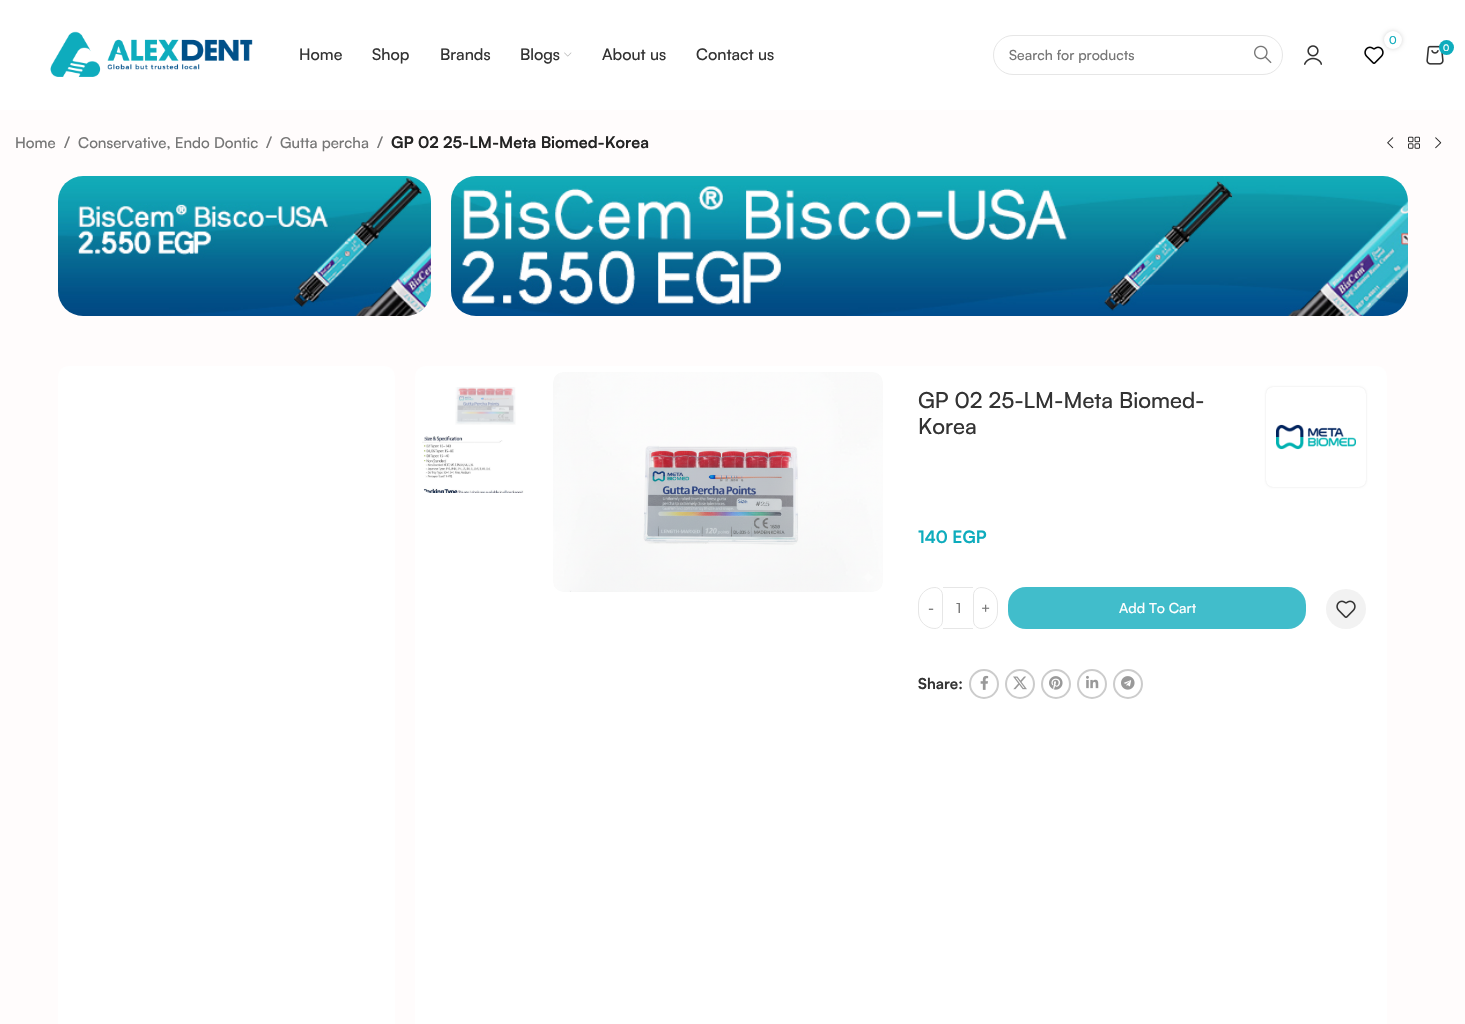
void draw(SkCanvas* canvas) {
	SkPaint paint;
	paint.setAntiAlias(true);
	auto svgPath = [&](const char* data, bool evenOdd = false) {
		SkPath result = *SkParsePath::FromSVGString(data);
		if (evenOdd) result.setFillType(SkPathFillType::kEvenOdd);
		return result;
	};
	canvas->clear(0xffffffff);
	canvas->drawImageRect(SkImages::DeferredFromEncodedData(SkData::MakeFromFileName("img1.png")), SkRect::MakeXYWH(50, 31, 203, 46), SkSamplingOptions());
	SkFont f1(fontMgr->matchFamilyStyle("Satoshi", SkFontStyle(500, SkFontStyle::kNormal_Width, SkFontStyle::kUpright_Slant)), 16);
	f1.setSubpixel(true);
	paint.setColor(0xff333333);
	canvas->drawString("Home", 299, 60, f1, paint);
	canvas->drawString("Shop", 372, 60, f1, paint);
	canvas->drawString("Brands", 440, 60, f1, paint);
	canvas->drawString("Blogs", 520, 60, f1, paint);
	canvas->drawImageRect(SkImages::DeferredFromEncodedData(SkData::MakeFromFileName("img2.png")), SkRect::MakeXYWH(564, 52, 8, 5), SkSamplingOptions());
	canvas->drawString("About us", 602, 60, f1, paint);
	canvas->drawString("Contact us", 696, 60, f1, paint);
	canvas->drawImageRect(SkImages::DeferredFromEncodedData(SkData::MakeFromFileName("img3.png")), SkRect::MakeXYWH(1364, 46, 20, 18), SkSamplingOptions());
	paint.setColor(0x2b000000);
	paint.setMaskFilter(SkMaskFilter::MakeBlur(kNormal_SkBlurStyle, 2));
	canvas->drawRoundRect(SkRect::MakeXYWH(1384, 31, 18, 18), 9, 9, paint);
	paint.setMaskFilter(nullptr);
	paint.setColor(0xffffffff);
	canvas->drawCircle(1393, 40, 9, paint);
	SkFont f2(fontMgr->matchFamilyStyle("Satoshi", SkFontStyle(500, SkFontStyle::kNormal_Width, SkFontStyle::kUpright_Slant)), 11);
	f2.setSubpixel(true);
	paint.setColor(0xff0eacbd);
	canvas->drawString("0", 1389, 44, f2, paint);
	paint.setStroke(true);
	paint.setStrokeWidth(1);
	paint.setColor(0xffe6e6e6);
	canvas->drawRoundRect(SkRect::MakeXYWH(993.5, 35.5, 289, 39), 19.5, 19.5, paint);
	SkFont f3(fontMgr->matchFamilyStyle("Satoshi", SkFontStyle(500, SkFontStyle::kNormal_Width, SkFontStyle::kUpright_Slant)), 14);
	f3.setSubpixel(true);
	paint.setStroke(false);
	paint.setColor(0xff767676);
	canvas->drawString("Search for products", 1009, 60, f3, paint);
	canvas->drawImageRect(SkImages::DeferredFromEncodedData(SkData::MakeFromFileName("img4.png")), SkRect::MakeXYWH(1254, 45, 18, 19), SkSamplingOptions());
	canvas->drawImageRect(SkImages::DeferredFromEncodedData(SkData::MakeFromFileName("img5.png")), SkRect::MakeXYWH(1304, 45, 18, 20), SkSamplingOptions());
	canvas->drawImageRect(SkImages::DeferredFromEncodedData(SkData::MakeFromFileName("img6.png")), SkRect::MakeXYWH(1426, 45, 18, 20), SkSamplingOptions());
	paint.setColor(0xff0eacbd);
	canvas->drawCircle(1446.5, 47.5, 7.5, paint);
	SkFont f4(fontMgr->matchFamilyStyle("Satoshi", SkFontStyle(500, SkFontStyle::kNormal_Width, SkFontStyle::kUpright_Slant)), 9);
	f4.setSubpixel(true);
	paint.setColor(0xffffffff);
	canvas->drawString("0", 1443, 51, f4, paint);
	paint.setColor(0xfffffcfc);
	canvas->drawRect(SkRect::MakeXYWH(0, 110, 1465, 914), paint);
	SkFont f5(fontMgr->matchFamilyStyle("Satoshi", SkFontStyle(500, SkFontStyle::kNormal_Width, SkFontStyle::kUpright_Slant)), 15);
	f5.setSubpixel(true);
	paint.setColor(0xff767676);
	canvas->drawString("Home", 15, 148, f5, paint);
	canvas->drawString("/", 64, 148, f1, paint);
	canvas->drawString("Conservative, Endo Dontic", 78, 148, f5, paint);
	canvas->drawString("/", 266, 148, f1, paint);
	canvas->drawString("Gutta percha", 280, 148, f5, paint);
	canvas->drawString("/", 377, 148, f1, paint);
	SkFont f6(fontMgr->matchFamilyStyle("Satoshi", SkFontStyle::Bold()), 16);
	f6.setSubpixel(true);
	paint.setColor(0xff242424);
	canvas->drawString("GP 02 25-LM-Meta Biomed-Korea", 391, 148, f6, paint);
	canvas->drawImageRect(SkImages::DeferredFromEncodedData(SkData::MakeFromFileName("img7.png")), SkRect::MakeXYWH(1387, 137, 7, 12), SkSamplingOptions());
	canvas->drawImageRect(SkImages::DeferredFromEncodedData(SkData::MakeFromFileName("img8.png")), SkRect::MakeXYWH(1408, 136, 12, 13), SkSamplingOptions());
	canvas->drawImageRect(SkImages::DeferredFromEncodedData(SkData::MakeFromFileName("img9.png")), SkRect::MakeXYWH(1435, 137, 7, 12), SkSamplingOptions());
	paint.setColor(0xfff5f7f8);
	canvas->drawRoundRect(SkRect::MakeXYWH(58, 176, 373, 140), 25, 25, paint);
	canvas->drawImageRect(SkImages::DeferredFromEncodedData(SkData::MakeFromFileName("img10.png")), SkRect::MakeXYWH(58, 176, 373, 140), SkSamplingOptions());
	canvas->drawRoundRect(SkRect::MakeXYWH(451, 176, 957, 140), 25, 25, paint);
	canvas->drawImageRect(SkImages::DeferredFromEncodedData(SkData::MakeFromFileName("img11.png")), SkRect::MakeXYWH(451, 176, 957, 140), SkSamplingOptions());
	paint.setColor(0xffffffff);
	canvas->drawRoundRect(SkRect::MakeXYWH(58, 366, 337, 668), 10, 10, paint);
	canvas->drawRoundRect(SkRect::MakeXYWH(415, 366, 972, 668), 10, 10, paint);
	canvas->drawImageRect(SkImages::DeferredFromEncodedData(SkData::MakeFromFileName("img12.png")), SkRect::MakeXYWH(455, 387, 61, 38), SkSamplingOptions());
	canvas->drawImageRect(SkImages::DeferredFromEncodedData(SkData::MakeFromFileName("img13.png")), SkRect::MakeXYWH(422, 436, 102, 57), SkSamplingOptions());
	canvas->drawImageRect(SkImages::DeferredFromEncodedData(SkData::MakeFromFileName("img14.png")), SkRect::MakeXYWH(553, 372, 330, 220), SkSamplingOptions());
	SkFont f7(fontMgr->matchFamilyStyle("Satoshi", SkFontStyle(500, SkFontStyle::kNormal_Width, SkFontStyle::kUpright_Slant)), 22);
	f7.setSubpixel(true);
	paint.setColor(0xff333333);
	canvas->drawString("GP 02 25-LM-Meta Biomed-", 918, 408, f7, paint);
	canvas->drawString("Korea", 918, 434, f7, paint);
	paint.setColor(0x1f000000);
	paint.setMaskFilter(SkMaskFilter::MakeBlur(kNormal_SkBlurStyle, 1));
	canvas->drawRoundRect(SkRect::MakeXYWH(1266, 387, 100, 100), 7, 7, paint);
	paint.setMaskFilter(nullptr);
	paint.setColor(0xffffffff);
	canvas->drawRoundRect(SkRect::MakeXYWH(1266, 387, 100, 100), 7, 7, paint);
	canvas->drawImageRect(SkImages::DeferredFromEncodedData(SkData::MakeFromFileName("img15.png")), SkRect::MakeXYWH(1276, 424, 80, 26), SkSamplingOptions());
	SkFont f8(fontMgr->matchFamilyStyle("Satoshi", SkFontStyle::Bold()), 17);
	f8.setSubpixel(true);
	paint.setColor(0xff0eacbd);
	canvas->drawString("140 EGP", 918, 543, f8, paint);
	paint.setStroke(true);
	paint.setColor(0xffe6e6e6);
	canvas->drawPath(svgPath("M935 587.5C939 587.5 942.5 591 942.5 595V621C942.5 625 939 628.5 935 628.5C926 628.5 918.5 621 918.5 612V604C918.5 595 926 587.5 935 587.5Z"), paint);
	paint.setStroke(false);
	paint.setColor(0xff767676);
	canvas->drawString("-", 928, 613, f3, paint);
	paint.setColor(0xffe6e6e6);
	canvas->drawRect(SkRect::MakeXYWH(943, 587, 30, 1), paint);
	canvas->drawRect(SkRect::MakeXYWH(943, 628, 30, 1), paint);
	paint.setColor(0xff767676);
	canvas->drawString("1", 956, 613, f3, paint);
	paint.setStroke(true);
	paint.setColor(0xffe6e6e6);
	canvas->drawPath(svgPath("M981 587.5C990 587.5 997.5 595 997.5 604V612C997.5 621 990 628.5 981 628.5C977 628.5 973.5 625 973.5 621V595C973.5 591 977 587.5 981 587.5Z"), paint);
	paint.setStroke(false);
	paint.setColor(0xff767676);
	canvas->drawString("+", 981, 613, f3, paint);
	paint.setColor(0xff41bdcb);
	canvas->drawRoundRect(SkRect::MakeXYWH(1008, 587, 298, 42), 18, 18, paint);
	paint.setColor(0xffffffff);
	canvas->drawString("Add To Cart", 1119, 613, f3, paint);
	paint.setColor(0xfff2f2f2);
	canvas->drawCircle(1346, 609, 20, paint);
	canvas->drawImageRect(SkImages::DeferredFromEncodedData(SkData::MakeFromFileName("img16.png")), SkRect::MakeXYWH(1336, 600, 20, 18), SkSamplingOptions());
	SkFont f9(fontMgr->matchFamilyStyle("Satoshi", SkFontStyle::Bold()), 15);
	f9.setSubpixel(true);
	paint.setColor(0xff333333);
	canvas->drawString("Share:", 918, 689, f9, paint);
	paint.setStroke(true);
	paint.setStrokeWidth(2);
	paint.setColor(0xffcccccc);
	canvas->drawCircle(984, 684, 14, paint);
	canvas->drawImageRect(SkImages::DeferredFromEncodedData(SkData::MakeFromFileName("img17.png")), SkRect::MakeXYWH(980, 675, 9, 15), SkSamplingOptions());
	canvas->drawCircle(1020, 684, 14, paint);
	canvas->drawImageRect(SkImages::DeferredFromEncodedData(SkData::MakeFromFileName("img18.png")), SkRect::MakeXYWH(1013, 676, 14, 14), SkSamplingOptions());
	canvas->drawCircle(1056, 684, 14, paint);
	canvas->drawImageRect(SkImages::DeferredFromEncodedData(SkData::MakeFromFileName("img19.png")), SkRect::MakeXYWH(1049, 676, 14, 14), SkSamplingOptions());
	canvas->drawCircle(1092, 684, 14, paint);
	canvas->drawImageRect(SkImages::DeferredFromEncodedData(SkData::MakeFromFileName("img20.png")), SkRect::MakeXYWH(1086, 675, 13, 14), SkSamplingOptions());
	canvas->drawCircle(1128, 684, 14, paint);
	canvas->drawImageRect(SkImages::DeferredFromEncodedData(SkData::MakeFromFileName("img21.png")), SkRect::MakeXYWH(1121, 676, 14, 14), SkSamplingOptions());
}
